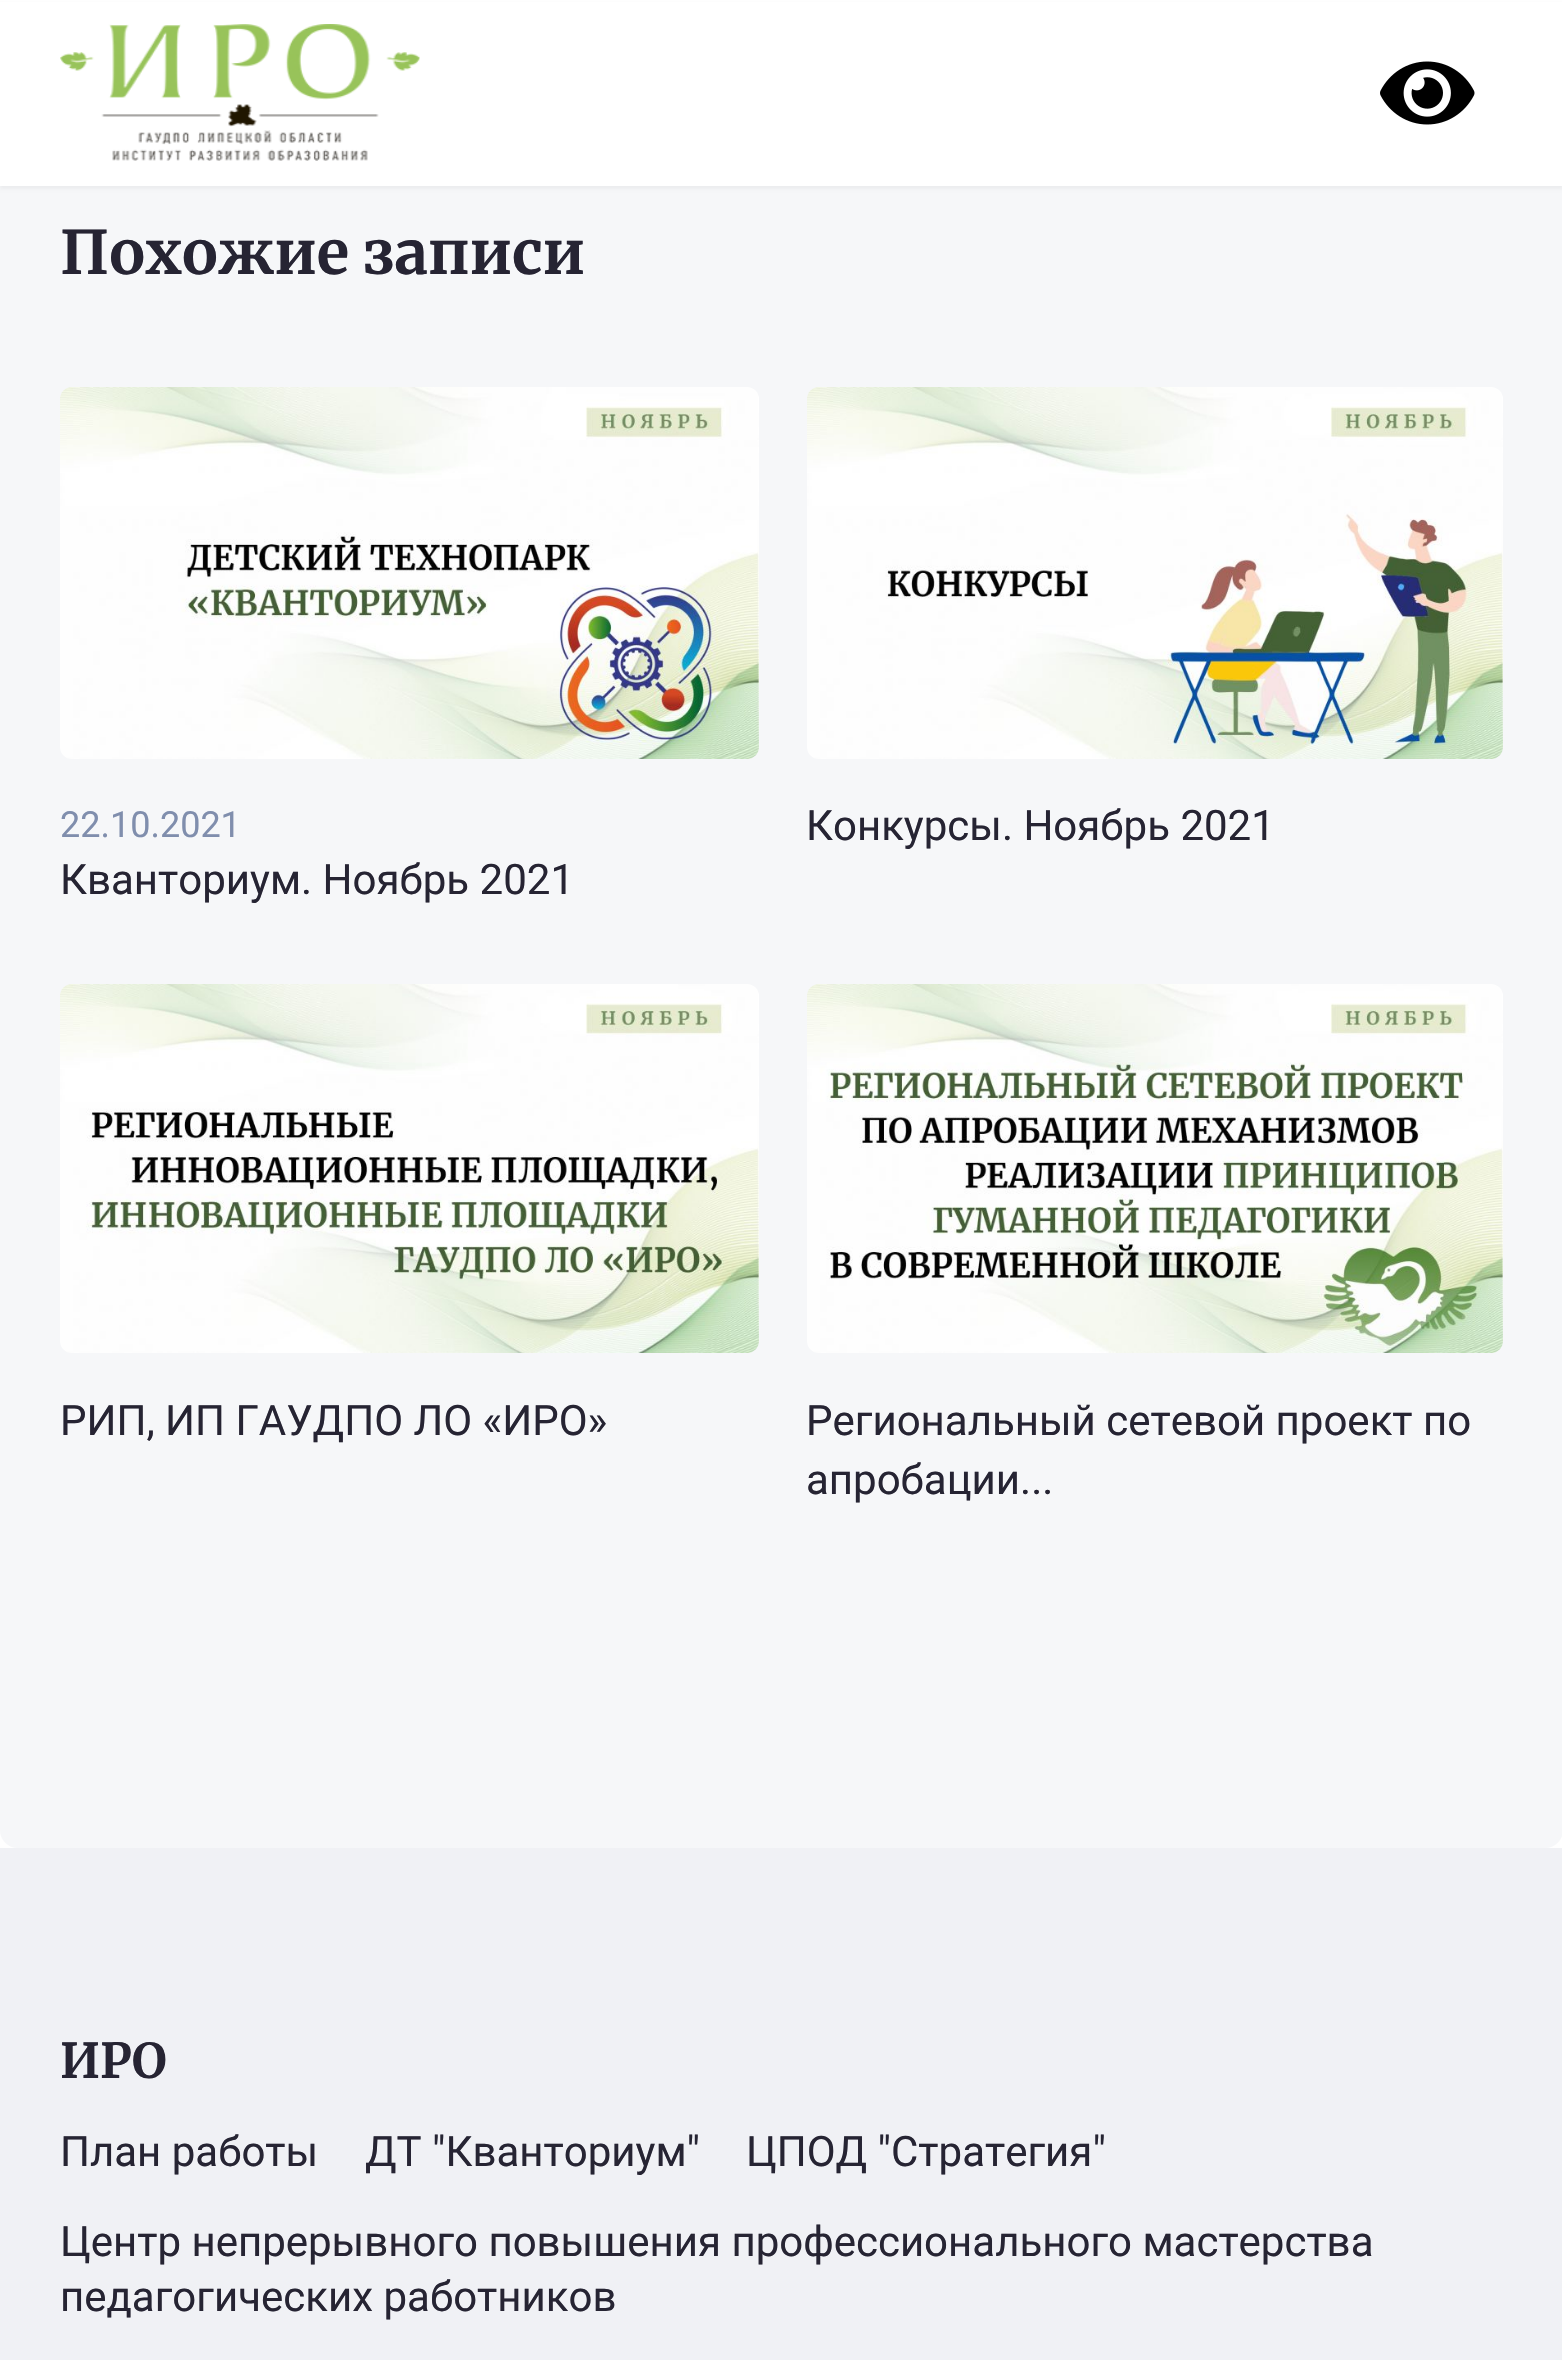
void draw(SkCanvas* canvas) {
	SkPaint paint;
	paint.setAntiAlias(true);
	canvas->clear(0xffffffff);
	paint.setColor(0xfff6f7f9);
	canvas->drawRoundRect(SkRect::MakeXYWH(0, 33, 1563, 1815), 18, 18, paint);
	paint.setColor(0x0a000000);
	paint.setMaskFilter(SkMaskFilter::MakeBlur(kNormal_SkBlurStyle, 1.5));
	canvas->drawRect(SkRect::MakeXYWH(0, 3, 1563, 186), paint);
	paint.setMaskFilter(nullptr);
	paint.setColor(0xffffffff);
	canvas->drawRect(SkRect::MakeXYWH(0, 2, 1562, 184), paint);
	canvas->drawImageRect(SkImages::DeferredFromEncodedData(SkData::MakeFromFileName("img1.png")), SkRect::MakeXYWH(60, 24, 360, 137), SkSamplingOptions());
	canvas->drawImageRect(SkImages::DeferredFromEncodedData(SkData::MakeFromFileName("img2.png")), SkRect::MakeXYWH(1380, 61, 95, 64), SkSamplingOptions());
	SkFont f1(fontMgr->matchFamilyStyle("Merriweather", SkFontStyle::Bold()), 60);
	f1.setSubpixel(true);
	paint.setColor(0xff262433);
	canvas->drawString("Похожие записи", 60, 274, f1, paint);
	canvas->drawImageRect(SkImages::DeferredFromEncodedData(SkData::MakeFromFileName("img3.png")), SkRect::MakeXYWH(60, 387, 699, 372), SkSamplingOptions());
	SkFont f2(fontMgr->matchFamilyStyle("Roboto", SkFontStyle::Normal()), 36);
	f2.setSubpixel(true);
	paint.setColor(0xff808ead);
	canvas->drawString("22.10.2021", 60, 837, f2, paint);
	SkFont f3(fontMgr->matchFamilyStyle("Roboto", SkFontStyle::Normal()), 42);
	f3.setSubpixel(true);
	paint.setColor(0xff262433);
	canvas->drawString("Кванториум. Ноябрь 2021", 60, 894, f3, paint);
	canvas->drawImageRect(SkImages::DeferredFromEncodedData(SkData::MakeFromFileName("img4.png")), SkRect::MakeXYWH(807, 387, 696, 372), SkSamplingOptions());
	canvas->drawString("Конкурсы. Ноябрь 2021", 806, 840, f3, paint);
	canvas->drawImageRect(SkImages::DeferredFromEncodedData(SkData::MakeFromFileName("img5.png")), SkRect::MakeXYWH(60, 984, 699, 369), SkSamplingOptions());
	canvas->drawString("РИП, ИП ГАУДПО ЛО «ИРО»", 60, 1435, f3, paint);
	canvas->drawImageRect(SkImages::DeferredFromEncodedData(SkData::MakeFromFileName("img6.png")), SkRect::MakeXYWH(807, 984, 696, 369), SkSamplingOptions());
	canvas->drawString("Региональный сетевой проект по", 806, 1435, f3, paint);
	canvas->drawString("апробации...", 806, 1494, f3, paint);
	paint.setColor(0xfff0f1f5);
	canvas->drawRect(SkRect::MakeXYWH(0, 1848, 1562, 512), paint);
	SkFont f4(fontMgr->matchFamilyStyle("Merriweather", SkFontStyle::Bold()), 48);
	f4.setSubpixel(true);
	paint.setColor(0xff262433);
	canvas->drawString("ИРО", 60, 2078, f4, paint);
	canvas->drawString("План работы", 60, 2166, f3, paint);
	canvas->drawString("ДТ \"Кванториум\"", 365, 2166, f3, paint);
	canvas->drawString("ЦПОД \"Стратегия\"", 746, 2166, f3, paint);
	canvas->drawString("Центр непрерывного повышения профессионального мастерства", 60, 2256, f3, paint);
	canvas->drawString("педагогических работников", 60, 2311, f3, paint);
}
